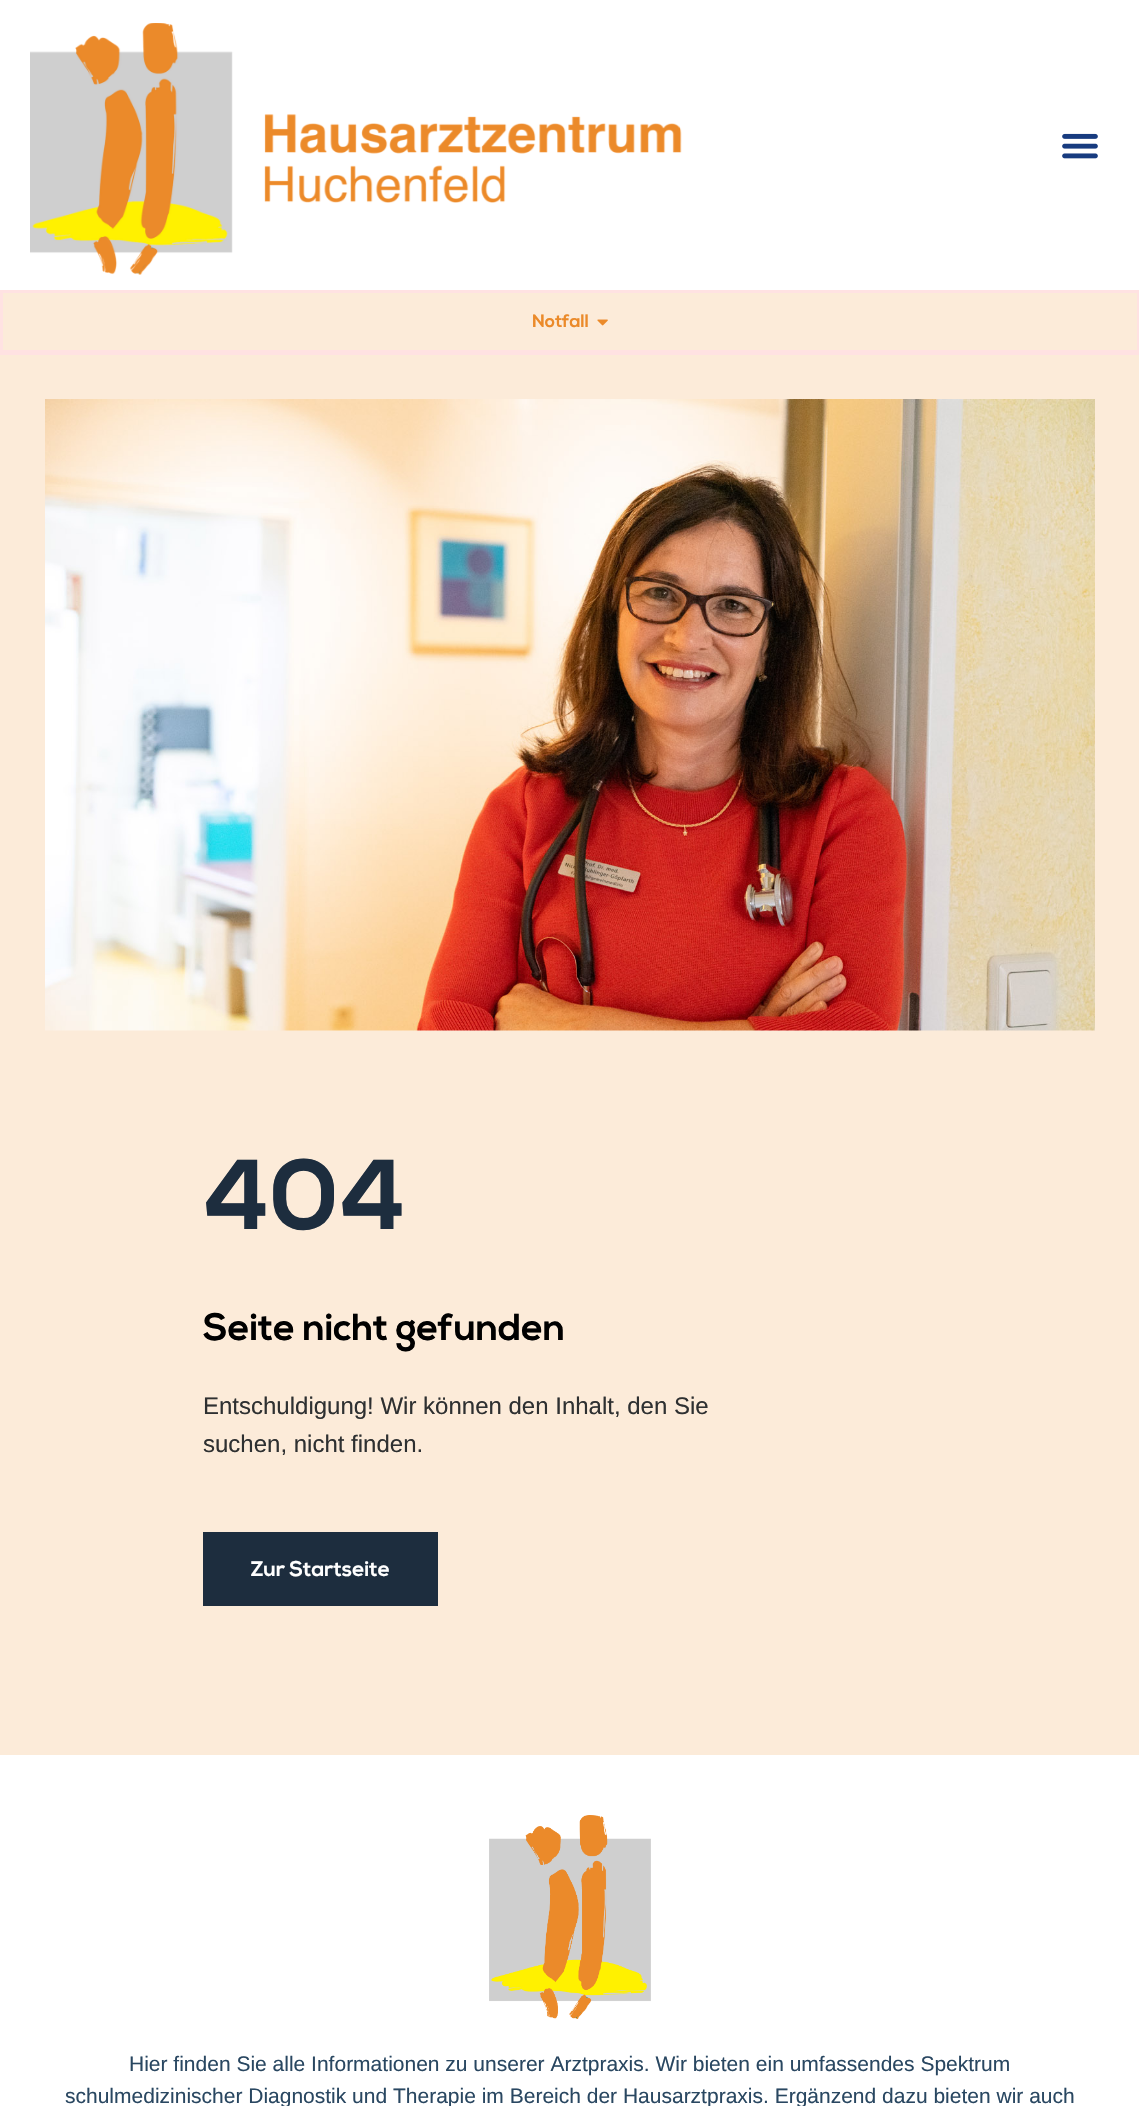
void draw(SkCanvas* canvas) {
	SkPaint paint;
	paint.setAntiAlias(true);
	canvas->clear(0xfffcebd9);
	paint.setColor(0xffffffff);
	canvas->drawRect(SkRect::MakeXYWH(0, 0, 1139, 290), paint);
	canvas->drawImageRect(SkImages::DeferredFromEncodedData(SkData::MakeFromFileName("img1.png")), SkRect::MakeXYWH(30, 23, 652, 252), SkSamplingOptions());
	canvas->drawImageRect(SkImages::DeferredFromEncodedData(SkData::MakeFromFileName("img2.png")), SkRect::MakeXYWH(1062, 133, 36, 26), SkSamplingOptions());
	paint.setColor(0xffffe2e2);
	canvas->drawRect(SkRect::MakeXYWH(0, 290, 1139, 3), paint);
	canvas->drawRect(SkRect::MakeXYWH(1137, 290, 2, 64), paint);
	canvas->drawRect(SkRect::MakeXYWH(0, 350, 1139, 5), paint);
	canvas->drawRect(SkRect::MakeXYWH(0, 290, 3, 64), paint);
	SkFont f1(fontMgr->matchFamilyStyle("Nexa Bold", SkFontStyle::Bold()), 18);
	f1.setSubpixel(true);
	paint.setColor(0xffeb8a2a);
	canvas->drawString("Notfall", 532, 327, f1, paint);
	canvas->drawImageRect(SkImages::DeferredFromEncodedData(SkData::MakeFromFileName("img3.png")), SkRect::MakeXYWH(597, 319, 11, 7), SkSamplingOptions());
	canvas->drawImageRect(SkImages::DeferredFromEncodedData(SkData::MakeFromFileName("img4.png")), SkRect::MakeXYWH(45, 399, 1050, 632), SkSamplingOptions());
	SkFont f2(fontMgr->matchFamilyStyle("Nexa Bold", SkFontStyle::Bold()), 99);
	f2.setSubpixel(true);
	paint.setColor(0xff1d2d3e);
	canvas->drawString("404", 203, 1229, f2, paint);
	SkFont f3(fontMgr->matchFamilyStyle("Nexa Bold", SkFontStyle::Bold()), 37.5);
	f3.setSubpixel(true);
	paint.setColor(0xff000000);
	canvas->drawString("Seite nicht gefunden", 203, 1340, f3, paint);
	SkFont f4(fontMgr->matchFamilyStyle("Liberation Sans", SkFontStyle::Normal()), 24);
	f4.setSubpixel(true);
	paint.setColor(0xff2e3031);
	canvas->drawString("Entschuldigung! Wir können den Inhalt, den Sie", 203, 1414, f4, paint);
	canvas->drawString("suchen, nicht finden.", 203, 1452, f4, paint);
	paint.setColor(0xff1d2d3e);
	canvas->drawRect(SkRect::MakeXYWH(206, 1535, 229, 66), paint);
	canvas->drawRect(SkRect::MakeXYWH(203, 1532, 235, 3), paint);
	canvas->drawRect(SkRect::MakeXYWH(435, 1532, 3, 73), paint);
	canvas->drawRect(SkRect::MakeXYWH(203, 1601, 235, 5), paint);
	canvas->drawRect(SkRect::MakeXYWH(203, 1532, 3, 73), paint);
	SkFont f5(fontMgr->matchFamilyStyle("Nexa Bold", SkFontStyle::Bold()), 21);
	f5.setSubpixel(true);
	paint.setColor(0xffffffff);
	canvas->drawString("Zur Startseite", 251, 1576, f5, paint);
	canvas->drawRect(SkRect::MakeXYWH(0, 1755, 1139, 351), paint);
	canvas->drawImageRect(SkImages::DeferredFromEncodedData(SkData::MakeFromFileName("img5.png")), SkRect::MakeXYWH(489, 1815, 162, 204), SkSamplingOptions());
	SkFont f6(fontMgr->matchFamilyStyle("Liberation Sans", SkFontStyle::Normal()), 21);
	f6.setSubpixel(true);
	paint.setColor(0xff294761);
	canvas->drawString("Hier finden Sie alle Informationen zu unserer Arztpraxis. Wir bieten ein umfassendes Spektrum", 129, 2071, f6, paint);
	canvas->drawString("schulmedizinischer Diagnostik und Therapie im Bereich der Hausarztpraxis. Ergänzend dazu bieten wir auch", 65, 2103, f6, paint);
}
